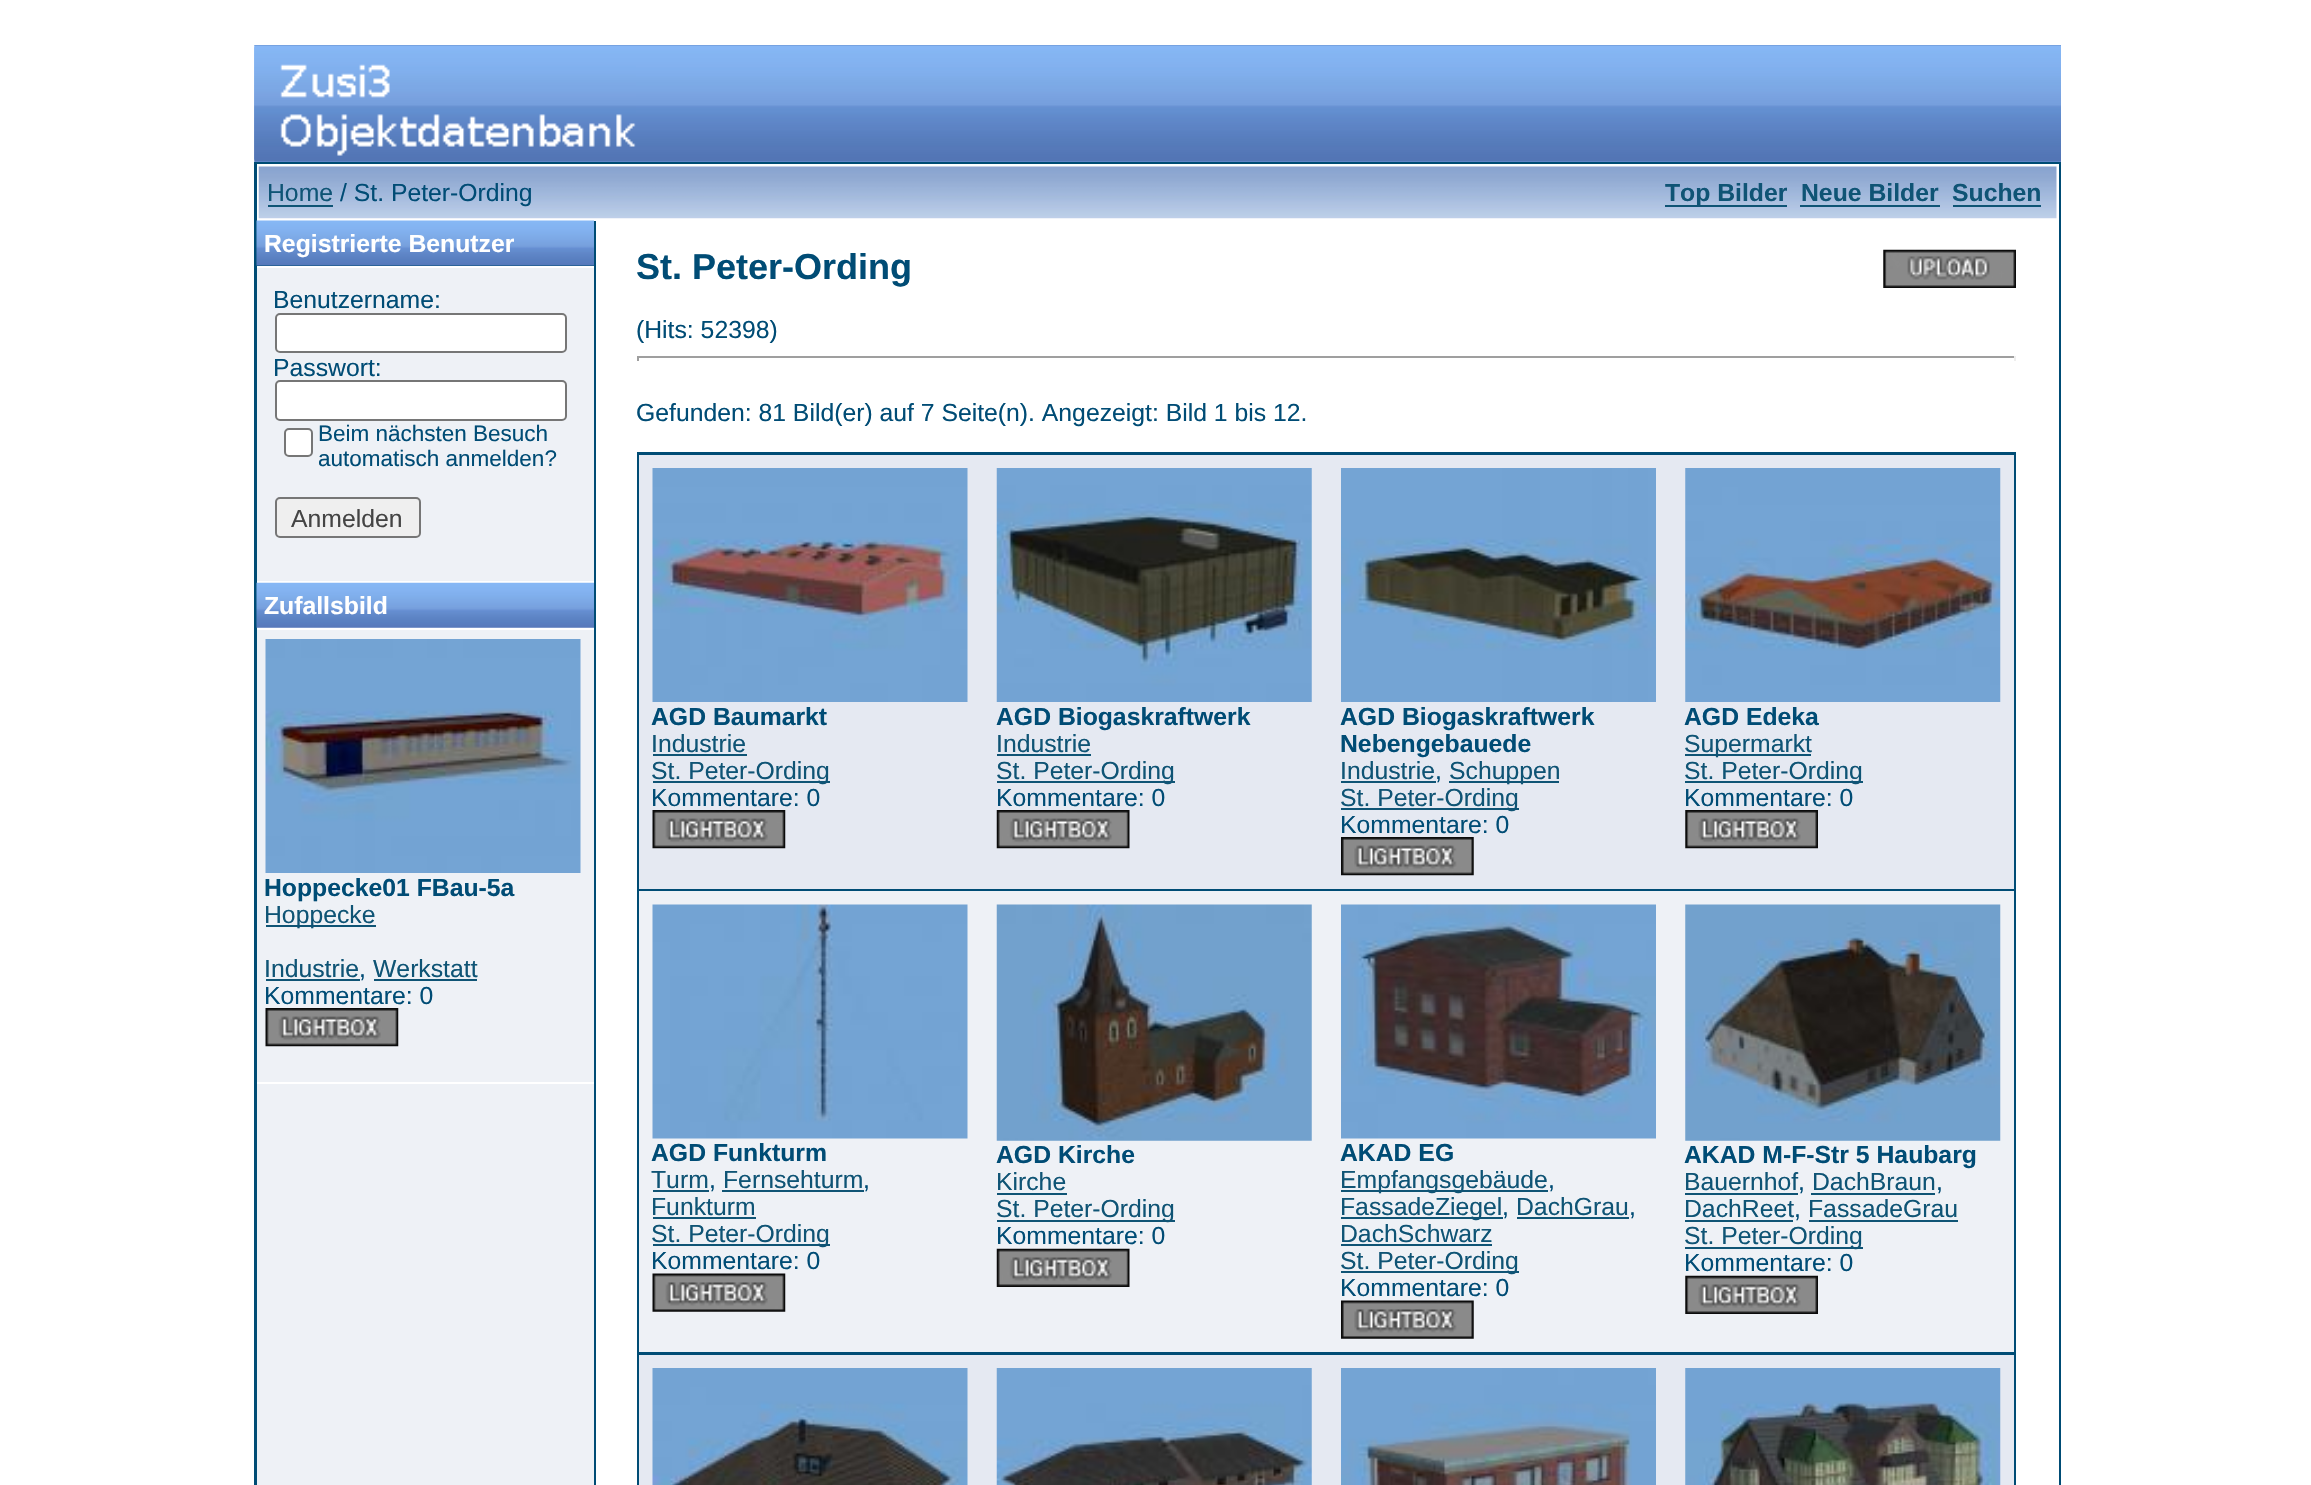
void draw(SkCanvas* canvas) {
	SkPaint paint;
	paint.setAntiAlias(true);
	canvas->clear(0xffffffff);
	canvas->drawImageRect(SkImages::DeferredFromEncodedData(SkData::MakeFromFileName("img1.png")), SkRect::MakeXYWH(254, 45, 1807, 117), SkSamplingOptions());
	canvas->drawImageRect(SkImages::DeferredFromEncodedData(SkData::MakeFromFileName("img2.png")), SkRect::MakeXYWH(254, 47, 382, 113), SkSamplingOptions());
	paint.setColor(0xff004c75);
	canvas->drawRect(SkRect::MakeXYWH(254, 162, 1807, 1323), paint);
	paint.setColor(0xffffffff);
	canvas->drawRect(SkRect::MakeXYWH(257, 164, 1802, 1321), paint);
	canvas->drawImageRect(SkImages::DeferredFromEncodedData(SkData::MakeFromFileName("img3.png")), SkRect::MakeXYWH(258, 166, 1799, 53), SkSamplingOptions());
	SkFont f1(fontMgr->matchFamilyStyle("Liberation Sans", SkFontStyle::Normal()), 24.75);
	f1.setSubpixel(true);
	paint.setColor(0xff0f5475);
	canvas->drawString("Home", 267, 201, f1, paint);
	canvas->drawRect(SkRect::MakeXYWH(268, 205, 65, 2), paint);
	paint.setColor(0xff004c75);
	canvas->drawString("/ St. Peter-Ording", 340, 201, f1, paint);
	paint.setColor(0xff0f5475);
	canvas->drawRect(SkRect::MakeXYWH(1665, 205, 122, 2), paint);
	SkFont f2(fontMgr->matchFamilyStyle("Liberation Sans", SkFontStyle::Bold()), 24.75);
	f2.setSubpixel(true);
	canvas->drawString("Top Bilder", 1665, 201, f2, paint);
	canvas->drawString("Neue Bilder", 1801, 201, f2, paint);
	canvas->drawRect(SkRect::MakeXYWH(1800, 205, 140, 2), paint);
	canvas->drawString("Suchen", 1952, 201, f2, paint);
	canvas->drawRect(SkRect::MakeXYWH(1953, 205, 88, 2), paint);
	paint.setColor(0xffeef1f6);
	canvas->drawRect(SkRect::MakeXYWH(257, 268, 337, 1217), paint);
	paint.setColor(0xff004c75);
	canvas->drawRect(SkRect::MakeXYWH(257, 265, 337, 1), paint);
	canvas->drawImageRect(SkImages::DeferredFromEncodedData(SkData::MakeFromFileName("img4.png")), SkRect::MakeXYWH(256, 220, 338, 46), SkSamplingOptions());
	paint.setColor(0xffffffff);
	canvas->drawString("Registrierte Benutzer", 264, 252, f2, paint);
	paint.setColor(0xff004c75);
	canvas->drawString("Benutzername:", 273, 308, f1, paint);
	paint.setColor(0xffffffff);
	canvas->drawRoundRect(SkRect::MakeXYWH(276, 314, 290, 38), 4, 4, paint);
	paint.setStroke(true);
	paint.setStrokeWidth(2);
	paint.setColor(0xff767676);
	canvas->drawRoundRect(SkRect::MakeXYWH(276, 314, 290, 38), 4, 4, paint);
	paint.setStroke(false);
	paint.setColor(0xff004c75);
	canvas->drawString("Passwort:", 273, 376, f1, paint);
	paint.setColor(0xffffffff);
	canvas->drawRoundRect(SkRect::MakeXYWH(276, 381, 290, 39), 4, 4, paint);
	paint.setStroke(true);
	paint.setColor(0xff767676);
	canvas->drawRoundRect(SkRect::MakeXYWH(276, 381, 290, 39), 4, 4, paint);
	paint.setStroke(false);
	paint.setColor(0xffffffff);
	canvas->drawRoundRect(SkRect::MakeXYWH(285, 429, 27, 27), 4, 4, paint);
	paint.setStroke(true);
	paint.setColor(0xff767676);
	canvas->drawRoundRect(SkRect::MakeXYWH(285, 429, 27, 27), 4, 4, paint);
	SkFont f3(fontMgr->matchFamilyStyle("Liberation Sans", SkFontStyle::Normal()), 22.5);
	f3.setSubpixel(true);
	paint.setStroke(false);
	paint.setColor(0xff004c75);
	canvas->drawString("Beim nächsten Besuch", 318, 441, f3, paint);
	canvas->drawString("automatisch anmelden?", 318, 466, f3, paint);
	paint.setColor(0xffefefef);
	canvas->drawRoundRect(SkRect::MakeXYWH(276, 498, 144, 39), 4, 4, paint);
	paint.setStroke(true);
	paint.setColor(0xff767676);
	canvas->drawRoundRect(SkRect::MakeXYWH(276, 498, 144, 39), 4, 4, paint);
	paint.setStroke(false);
	paint.setColor(0xff444444);
	canvas->drawString("Anmelden", 291, 527, f1, paint);
	paint.setColor(0xffffffff);
	canvas->drawRect(SkRect::MakeXYWH(257, 581, 337, 2), paint);
	canvas->drawImageRect(SkImages::DeferredFromEncodedData(SkData::MakeFromFileName("img5.png")), SkRect::MakeXYWH(256, 582, 338, 46), SkSamplingOptions());
	canvas->drawString("Zufallsbild", 264, 614, f2, paint);
	canvas->drawRect(SkRect::MakeXYWH(257, 628, 337, 2), paint);
	canvas->drawImageRect(SkImages::DeferredFromEncodedData(SkData::MakeFromFileName("img6.png")), SkRect::MakeXYWH(265, 639, 316, 234), SkSamplingOptions());
	paint.setColor(0xff004c75);
	canvas->drawString("Hoppecke01 FBau-5a", 264, 896, f2, paint);
	paint.setColor(0xff0f5475);
	canvas->drawRect(SkRect::MakeXYWH(266, 925, 110, 2), paint);
	canvas->drawString("Hoppecke", 264, 923, f1, paint);
	canvas->drawString("Industrie", 264, 977, f1, paint);
	canvas->drawRect(SkRect::MakeXYWH(266, 979, 94, 2), paint);
	paint.setColor(0xff004c75);
	canvas->drawString(",", 359, 977, f1, paint);
	paint.setColor(0xff0f5475);
	canvas->drawString("Werkstatt", 373, 977, f1, paint);
	canvas->drawRect(SkRect::MakeXYWH(374, 979, 103, 2), paint);
	paint.setColor(0xff004c75);
	canvas->drawString("Kommentare: 0", 264, 1004, f1, paint);
	canvas->drawImageRect(SkImages::DeferredFromEncodedData(SkData::MakeFromFileName("img7.png")), SkRect::MakeXYWH(265, 1008, 134, 39), SkSamplingOptions());
	paint.setColor(0xffffffff);
	canvas->drawRect(SkRect::MakeXYWH(257, 1082, 337, 2), paint);
	paint.setColor(0xff004c75);
	canvas->drawRect(SkRect::MakeXYWH(594, 221, 2, 1264), paint);
	SkFont f4(fontMgr->matchFamilyStyle("Liberation Sans", SkFontStyle::Bold()), 36);
	f4.setSubpixel(true);
	canvas->drawString("St. Peter-Ording", 636, 279, f4, paint);
	canvas->drawImageRect(SkImages::DeferredFromEncodedData(SkData::MakeFromFileName("img8.png")), SkRect::MakeXYWH(1883, 249, 133, 39), SkSamplingOptions());
	canvas->drawString("(Hits: 52398)", 636, 338, f1, paint);
	paint.setColor(0xff9f9f9f);
	canvas->drawRect(SkRect::MakeXYWH(637, 356, 1379, 2), paint);
	paint.setColor(0xffeeeeee);
	canvas->drawRect(SkRect::MakeXYWH(2014, 356, 2, 5), paint);
	paint.setColor(0xff9f9f9f);
	canvas->drawRect(SkRect::MakeXYWH(637, 356, 2, 5), paint);
	paint.setColor(0xff004c75);
	canvas->drawString("Gefunden: 81 Bild(er) auf 7 Seite(n). Angezeigt: Bild 1 bis 12.", 636, 421, f1, paint);
	canvas->drawRect(SkRect::MakeXYWH(637, 452, 1379, 1033), paint);
	paint.setColor(0xffe5e9f2);
	canvas->drawRect(SkRect::MakeXYWH(639, 455, 1375, 434), paint);
	canvas->drawImageRect(SkImages::DeferredFromEncodedData(SkData::MakeFromFileName("img9.png")), SkRect::MakeXYWH(652, 468, 316, 234), SkSamplingOptions());
	paint.setColor(0xff004c75);
	canvas->drawString("AGD Baumarkt", 651, 725, f2, paint);
	paint.setColor(0xff0f5475);
	canvas->drawString("Industrie", 651, 752, f1, paint);
	canvas->drawRect(SkRect::MakeXYWH(653, 754, 94, 2), paint);
	canvas->drawRect(SkRect::MakeXYWH(653, 781, 177, 2), paint);
	canvas->drawString("St. Peter-Ording", 651, 779, f1, paint);
	paint.setColor(0xff004c75);
	canvas->drawString("Kommentare: 0", 651, 806, f1, paint);
	canvas->drawImageRect(SkImages::DeferredFromEncodedData(SkData::MakeFromFileName("img10.png")), SkRect::MakeXYWH(652, 810, 134, 39), SkSamplingOptions());
	canvas->drawImageRect(SkImages::DeferredFromEncodedData(SkData::MakeFromFileName("img11.png")), SkRect::MakeXYWH(996, 468, 316, 234), SkSamplingOptions());
	canvas->drawString("AGD Biogaskraftwerk", 996, 725, f2, paint);
	paint.setColor(0xff0f5475);
	canvas->drawString("Industrie", 996, 752, f1, paint);
	canvas->drawRect(SkRect::MakeXYWH(997, 754, 94, 2), paint);
	canvas->drawRect(SkRect::MakeXYWH(997, 781, 178, 2), paint);
	canvas->drawString("St. Peter-Ording", 996, 779, f1, paint);
	paint.setColor(0xff004c75);
	canvas->drawString("Kommentare: 0", 996, 806, f1, paint);
	canvas->drawImageRect(SkImages::DeferredFromEncodedData(SkData::MakeFromFileName("img12.png")), SkRect::MakeXYWH(996, 810, 134, 39), SkSamplingOptions());
	canvas->drawImageRect(SkImages::DeferredFromEncodedData(SkData::MakeFromFileName("img13.png")), SkRect::MakeXYWH(1341, 468, 315, 234), SkSamplingOptions());
	canvas->drawString("AGD Biogaskraftwerk", 1340, 725, f2, paint);
	canvas->drawString("Nebengebauede", 1340, 752, f2, paint);
	paint.setColor(0xff0f5475);
	canvas->drawString("Industrie", 1340, 779, f1, paint);
	canvas->drawRect(SkRect::MakeXYWH(1341, 781, 95, 2), paint);
	paint.setColor(0xff004c75);
	canvas->drawString(",", 1435, 779, f1, paint);
	paint.setColor(0xff0f5475);
	canvas->drawRect(SkRect::MakeXYWH(1449, 781, 110, 2), paint);
	canvas->drawString("Schuppen", 1449, 779, f1, paint);
	canvas->drawRect(SkRect::MakeXYWH(1341, 808, 178, 2), paint);
	canvas->drawString("St. Peter-Ording", 1340, 806, f1, paint);
	paint.setColor(0xff004c75);
	canvas->drawString("Kommentare: 0", 1340, 833, f1, paint);
	canvas->drawImageRect(SkImages::DeferredFromEncodedData(SkData::MakeFromFileName("img14.png")), SkRect::MakeXYWH(1341, 837, 133, 39), SkSamplingOptions());
	canvas->drawImageRect(SkImages::DeferredFromEncodedData(SkData::MakeFromFileName("img15.png")), SkRect::MakeXYWH(1685, 468, 316, 234), SkSamplingOptions());
	canvas->drawString("AGD Edeka", 1684, 725, f2, paint);
	paint.setColor(0xff0f5475);
	canvas->drawRect(SkRect::MakeXYWH(1685, 754, 126, 2), paint);
	canvas->drawString("Supermarkt", 1684, 752, f1, paint);
	canvas->drawRect(SkRect::MakeXYWH(1685, 781, 178, 2), paint);
	canvas->drawString("St. Peter-Ording", 1684, 779, f1, paint);
	paint.setColor(0xff004c75);
	canvas->drawString("Kommentare: 0", 1684, 806, f1, paint);
	canvas->drawImageRect(SkImages::DeferredFromEncodedData(SkData::MakeFromFileName("img16.png")), SkRect::MakeXYWH(1685, 810, 133, 39), SkSamplingOptions());
	paint.setColor(0xffeef1f6);
	canvas->drawRect(SkRect::MakeXYWH(639, 891, 1375, 461), paint);
	canvas->drawImageRect(SkImages::DeferredFromEncodedData(SkData::MakeFromFileName("img17.png")), SkRect::MakeXYWH(652, 904, 316, 235), SkSamplingOptions());
	paint.setColor(0xff004c75);
	canvas->drawString("AGD Funkturm", 651, 1161, f2, paint);
	paint.setColor(0xff0f5475);
	canvas->drawString("Turm", 651, 1188, f1, paint);
	canvas->drawRect(SkRect::MakeXYWH(653, 1190, 56, 2), paint);
	paint.setColor(0xff004c75);
	canvas->drawString(",", 709, 1188, f1, paint);
	paint.setColor(0xff0f5475);
	canvas->drawString("Fernsehturm", 723, 1188, f1, paint);
	canvas->drawRect(SkRect::MakeXYWH(722, 1190, 142, 2), paint);
	paint.setColor(0xff004c75);
	canvas->drawString(",", 863, 1188, f1, paint);
	paint.setColor(0xff0f5475);
	canvas->drawString("Funkturm", 651, 1215, f1, paint);
	canvas->drawRect(SkRect::MakeXYWH(653, 1217, 103, 2), paint);
	canvas->drawRect(SkRect::MakeXYWH(653, 1244, 177, 2), paint);
	canvas->drawString("St. Peter-Ording", 651, 1242, f1, paint);
	paint.setColor(0xff004c75);
	canvas->drawString("Kommentare: 0", 651, 1269, f1, paint);
	canvas->drawImageRect(SkImages::DeferredFromEncodedData(SkData::MakeFromFileName("img18.png")), SkRect::MakeXYWH(652, 1273, 134, 39), SkSamplingOptions());
	canvas->drawImageRect(SkImages::DeferredFromEncodedData(SkData::MakeFromFileName("img19.png")), SkRect::MakeXYWH(996, 904, 316, 237), SkSamplingOptions());
	canvas->drawString("AGD Kirche", 996, 1163, f2, paint);
	paint.setColor(0xff0f5475);
	canvas->drawString("Kirche", 996, 1190, f1, paint);
	canvas->drawRect(SkRect::MakeXYWH(997, 1193, 70, 2), paint);
	canvas->drawRect(SkRect::MakeXYWH(997, 1220, 178, 2), paint);
	canvas->drawString("St. Peter-Ording", 996, 1217, f1, paint);
	paint.setColor(0xff004c75);
	canvas->drawString("Kommentare: 0", 996, 1244, f1, paint);
	canvas->drawImageRect(SkImages::DeferredFromEncodedData(SkData::MakeFromFileName("img20.png")), SkRect::MakeXYWH(996, 1248, 134, 39), SkSamplingOptions());
	canvas->drawImageRect(SkImages::DeferredFromEncodedData(SkData::MakeFromFileName("img21.png")), SkRect::MakeXYWH(1341, 904, 315, 235), SkSamplingOptions());
	canvas->drawString("AKAD EG", 1340, 1161, f2, paint);
	paint.setColor(0xff0f5475);
	canvas->drawRect(SkRect::MakeXYWH(1341, 1190, 207, 2), paint);
	canvas->drawString("Empfangsgebäude", 1340, 1188, f1, paint);
	paint.setColor(0xff004c75);
	canvas->drawString(",", 1548, 1188, f1, paint);
	paint.setColor(0xff0f5475);
	canvas->drawRect(SkRect::MakeXYWH(1341, 1217, 162, 2), paint);
	canvas->drawString("FassadeZiegel", 1340, 1215, f1, paint);
	paint.setColor(0xff004c75);
	canvas->drawString(",", 1502, 1215, f1, paint);
	paint.setColor(0xff0f5475);
	canvas->drawString("DachGrau", 1516, 1215, f1, paint);
	canvas->drawRect(SkRect::MakeXYWH(1517, 1217, 112, 2), paint);
	paint.setColor(0xff004c75);
	canvas->drawString(",", 1629, 1215, f1, paint);
	paint.setColor(0xff0f5475);
	canvas->drawString("DachSchwarz", 1340, 1242, f1, paint);
	canvas->drawRect(SkRect::MakeXYWH(1341, 1244, 151, 2), paint);
	canvas->drawRect(SkRect::MakeXYWH(1341, 1271, 178, 2), paint);
	canvas->drawString("St. Peter-Ording", 1340, 1269, f1, paint);
	paint.setColor(0xff004c75);
	canvas->drawString("Kommentare: 0", 1340, 1296, f1, paint);
	canvas->drawImageRect(SkImages::DeferredFromEncodedData(SkData::MakeFromFileName("img22.png")), SkRect::MakeXYWH(1341, 1300, 133, 39), SkSamplingOptions());
	canvas->drawImageRect(SkImages::DeferredFromEncodedData(SkData::MakeFromFileName("img23.png")), SkRect::MakeXYWH(1685, 904, 316, 237), SkSamplingOptions());
	canvas->drawString("AKAD M-F-Str 5 Haubarg", 1684, 1163, f2, paint);
	paint.setColor(0xff0f5475);
	canvas->drawString("Bauernhof", 1684, 1190, f1, paint);
	canvas->drawRect(SkRect::MakeXYWH(1685, 1193, 113, 2), paint);
	paint.setColor(0xff004c75);
	canvas->drawString(",", 1798, 1190, f1, paint);
	paint.setColor(0xff0f5475);
	canvas->drawString("DachBraun", 1812, 1190, f1, paint);
	canvas->drawRect(SkRect::MakeXYWH(1811, 1193, 124, 2), paint);
	paint.setColor(0xff004c75);
	canvas->drawString(",", 1936, 1190, f1, paint);
	paint.setColor(0xff0f5475);
	canvas->drawString("DachReet", 1684, 1217, f1, paint);
	canvas->drawRect(SkRect::MakeXYWH(1685, 1220, 108, 2), paint);
	paint.setColor(0xff004c75);
	canvas->drawString(",", 1794, 1217, f1, paint);
	paint.setColor(0xff0f5475);
	canvas->drawString("FassadeGrau", 1808, 1217, f1, paint);
	canvas->drawRect(SkRect::MakeXYWH(1809, 1220, 149, 2), paint);
	canvas->drawRect(SkRect::MakeXYWH(1685, 1247, 178, 2), paint);
	canvas->drawString("St. Peter-Ording", 1684, 1244, f1, paint);
	paint.setColor(0xff004c75);
	canvas->drawString("Kommentare: 0", 1684, 1271, f1, paint);
	canvas->drawImageRect(SkImages::DeferredFromEncodedData(SkData::MakeFromFileName("img24.png")), SkRect::MakeXYWH(1685, 1275, 133, 39), SkSamplingOptions());
	paint.setColor(0xffe5e9f2);
	canvas->drawRect(SkRect::MakeXYWH(639, 1355, 1375, 130), paint);
	canvas->drawImageRect(SkImages::DeferredFromEncodedData(SkData::MakeFromFileName("img25.png")), SkRect::MakeXYWH(652, 1368, 316, 117), SkSamplingOptions());
	canvas->drawImageRect(SkImages::DeferredFromEncodedData(SkData::MakeFromFileName("img26.png")), SkRect::MakeXYWH(996, 1368, 316, 117), SkSamplingOptions());
	canvas->drawImageRect(SkImages::DeferredFromEncodedData(SkData::MakeFromFileName("img27.png")), SkRect::MakeXYWH(1341, 1368, 315, 117), SkSamplingOptions());
	canvas->drawImageRect(SkImages::DeferredFromEncodedData(SkData::MakeFromFileName("img28.png")), SkRect::MakeXYWH(1685, 1368, 316, 117), SkSamplingOptions());
}
